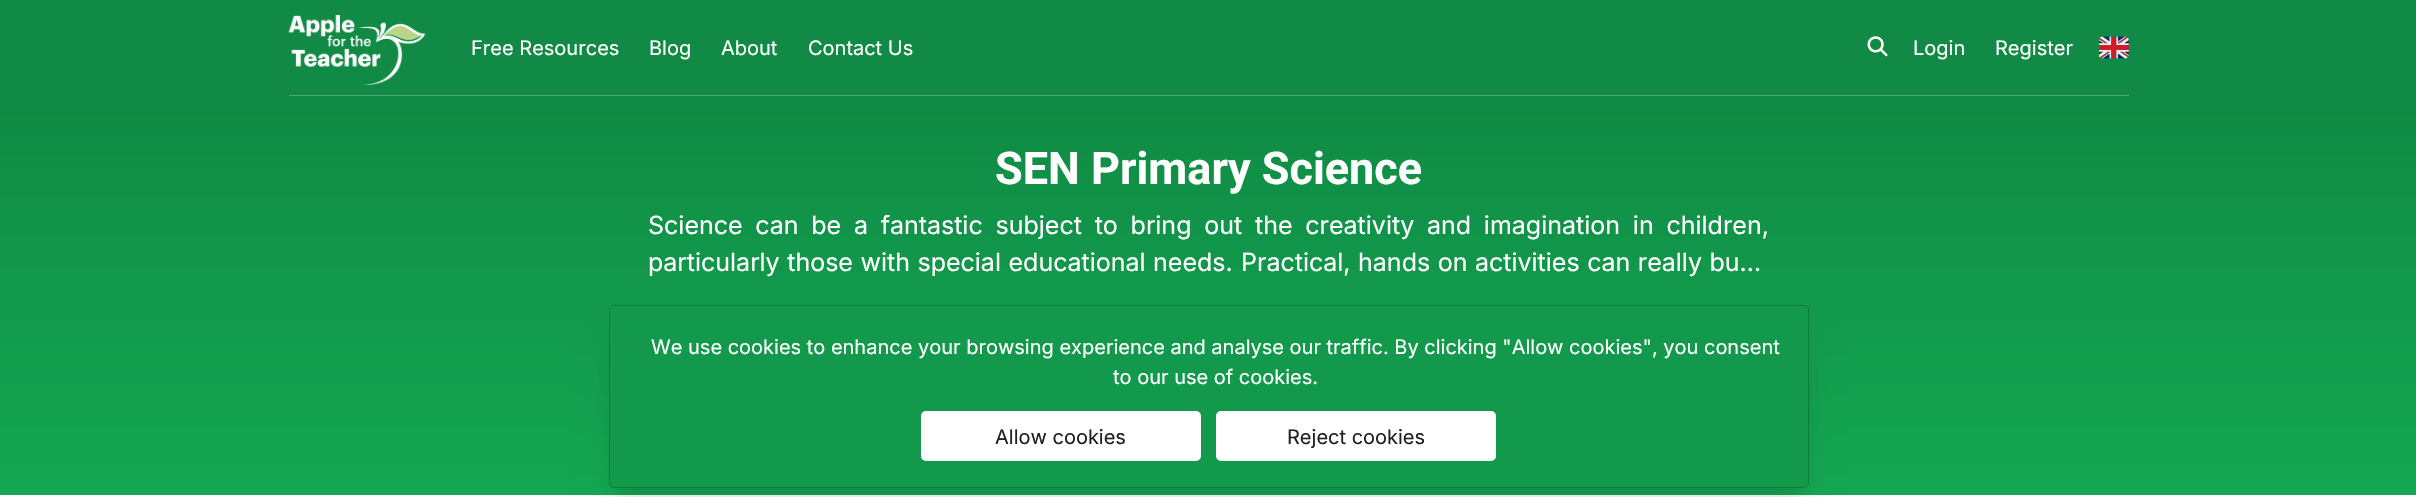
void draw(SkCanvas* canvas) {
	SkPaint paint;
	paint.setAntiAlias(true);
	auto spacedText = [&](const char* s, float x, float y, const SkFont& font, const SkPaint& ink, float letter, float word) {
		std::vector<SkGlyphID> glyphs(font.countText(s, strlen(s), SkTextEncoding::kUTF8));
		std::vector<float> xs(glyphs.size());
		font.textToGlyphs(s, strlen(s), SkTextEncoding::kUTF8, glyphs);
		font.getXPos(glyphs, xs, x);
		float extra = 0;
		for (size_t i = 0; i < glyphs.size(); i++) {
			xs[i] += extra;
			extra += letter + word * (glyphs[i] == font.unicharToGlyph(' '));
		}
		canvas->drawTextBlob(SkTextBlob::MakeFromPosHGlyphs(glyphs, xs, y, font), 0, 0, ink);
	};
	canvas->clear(0xffffffff);
	paint.setColor(0xff108a44);
	canvas->drawRect(SkRect::MakeXYWH(0, 0, 2416, 96), paint);
	paint.setColor(0xff4ca773);
	canvas->drawRect(SkRect::MakeXYWH(289, 95, 1840, 1), paint);
	canvas->drawImageRect(SkImages::DeferredFromEncodedData(SkData::MakeFromFileName("img1.png")), SkRect::MakeXYWH(288, 15, 137, 70), SkSamplingOptions());
	SkFont f1(fontMgr->matchFamilyStyle("Inter", SkFontStyle::Normal()), 20);
	f1.setSubpixel(true);
	paint.setColor(0xffffffff);
	canvas->drawString("Free Resources", 471, 55, f1, paint);
	canvas->drawString("Blog", 649, 55, f1, paint);
	canvas->drawString("About", 721, 55, f1, paint);
	canvas->drawString("Contact Us", 808, 55, f1, paint);
	canvas->drawImageRect(SkImages::DeferredFromEncodedData(SkData::MakeFromFileName("img2.png")), SkRect::MakeXYWH(1867, 36, 21, 21), SkSamplingOptions());
	canvas->drawString("Login", 1913, 55, f1, paint);
	canvas->drawString("Register", 1995, 55, f1, paint);
	canvas->drawImageRect(SkImages::DeferredFromEncodedData(SkData::MakeFromFileName("img3.png")), SkRect::MakeXYWH(2099, 36, 30, 23), SkSamplingOptions());
	{
		const SkColor colors[] = {0xff108a44, 0xff14a853};
		const float stops[] = {0, 1};
		const SkPoint ends[] = {{1208, 96}, {1208, 495}};
		paint.setShader(SkGradientShader::MakeLinear(ends, colors, stops, 2, SkTileMode::kClamp));
		paint.setAlpha(255);
	}
	canvas->drawRect(SkRect::MakeXYWH(0, 96, 2416, 399), paint);
	SkFont f2(fontMgr->matchFamilyStyle("Roboto", SkFontStyle::Bold()), 45);
	f2.setSubpixel(true);
	paint.setShader(nullptr);
	paint.setColor(0xffffffff);
	canvas->drawString("SEN Primary Science", 995, 184, f2, paint);
	SkFont f3(fontMgr->matchFamilyStyle("Inter", SkFontStyle::Normal()), 25);
	f3.setSubpixel(true);
	spacedText("Science can be a fantastic subject to bring out the creativity and imagination in children,", 648, 234, f3, paint, 0, 5.75);
	spacedText("particularly those with special educational needs.", 648, 271, f3, paint, 0, 0.5);
	spacedText("Practical, hands on activities can really bu…", 1241, 271, f3, paint, 0, 0.5);
	paint.setColor(0x1a000000);
	paint.setMaskFilter(SkMaskFilter::MakeBlur(kNormal_SkBlurStyle, 6));
	canvas->drawRect(SkRect::MakeXYWH(616, 323, 1185, 167), paint);
	paint.setMaskFilter(nullptr);
	paint.setMaskFilter(SkMaskFilter::MakeBlur(kNormal_SkBlurStyle, 15.5));
	canvas->drawRect(SkRect::MakeXYWH(615, 336, 1188, 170), paint);
	paint.setMaskFilter(nullptr);
	paint.setColor(0xff12994c);
	canvas->drawRoundRect(SkRect::MakeXYWH(609, 305, 1200, 183), 5, 5, paint);
	paint.setStroke(true);
	paint.setStrokeWidth(1);
	paint.setColor(0x33000000);
	canvas->drawRoundRect(SkRect::MakeXYWH(609.5, 305.5, 1199, 182), 4.5, 4.5, paint);
	paint.setStroke(false);
	paint.setColor(0xffffffff);
	canvas->drawString("We use cookies to enhance your browsing experience and analyse our traffic. By clicking \"Allow cookies\", you consent", 651, 354, f1, paint);
	canvas->drawString("to our use of cookies.", 1113, 384, f1, paint);
	canvas->drawRoundRect(SkRect::MakeXYWH(921, 411, 280, 50), 5, 5, paint);
	paint.setColor(0xff231f20);
	canvas->drawString("Allow cookies", 995, 444, f1, paint);
	paint.setColor(0xffffffff);
	canvas->drawRoundRect(SkRect::MakeXYWH(1216, 411, 280, 50), 5, 5, paint);
	paint.setColor(0xff231f20);
	canvas->drawString("Reject cookies", 1287, 444, f1, paint);
}
